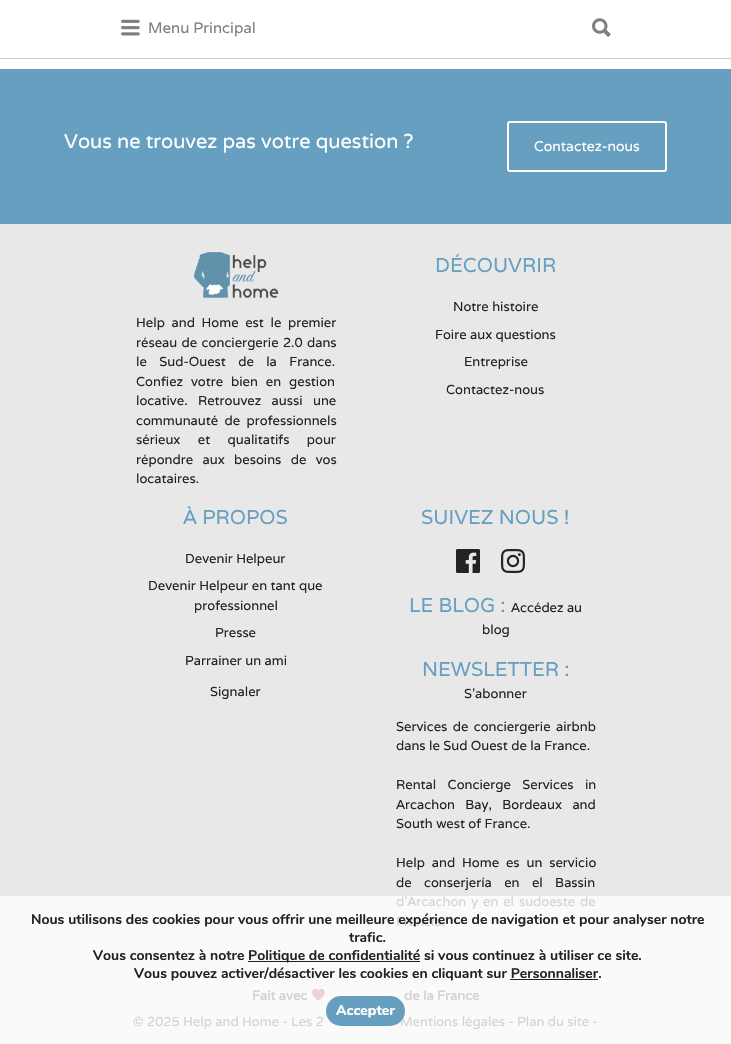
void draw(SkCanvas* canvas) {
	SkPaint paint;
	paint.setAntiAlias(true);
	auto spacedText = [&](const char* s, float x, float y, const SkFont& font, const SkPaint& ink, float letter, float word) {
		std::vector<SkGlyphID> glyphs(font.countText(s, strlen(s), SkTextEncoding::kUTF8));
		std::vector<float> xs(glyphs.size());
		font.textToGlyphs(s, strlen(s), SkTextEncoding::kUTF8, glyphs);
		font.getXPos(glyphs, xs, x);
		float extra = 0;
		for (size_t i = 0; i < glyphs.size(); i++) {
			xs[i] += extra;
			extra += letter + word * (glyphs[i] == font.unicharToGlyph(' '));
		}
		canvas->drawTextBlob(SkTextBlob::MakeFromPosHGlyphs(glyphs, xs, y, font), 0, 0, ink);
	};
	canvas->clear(0xffffffff);
	paint.setColor(0xffcccccc);
	canvas->drawRect(SkRect::MakeXYWH(0, 58, 731, 1), paint);
	canvas->drawImageRect(SkImages::DeferredFromEncodedData(SkData::MakeFromFileName("img1.png")), SkRect::MakeXYWH(121, 19, 19, 17), SkSamplingOptions());
	SkFont f1(fontMgr->matchFamilyStyle("Varela", SkFontStyle::Normal()), 15);
	f1.setSubpixel(true);
	paint.setColor(0xff7f7f7f);
	canvas->drawString("Menu Principal", 148, 33, f1, paint);
	canvas->drawImageRect(SkImages::DeferredFromEncodedData(SkData::MakeFromFileName("img2.png")), SkRect::MakeXYWH(592, 18, 19, 19), SkSamplingOptions());
	paint.setColor(0xff669fbf);
	canvas->drawRect(SkRect::MakeXYWH(0, 69, 731, 155), paint);
	SkFont f2(fontMgr->matchFamilyStyle("Varela Round", SkFontStyle::Normal()), 20);
	f2.setSubpixel(true);
	paint.setColor(0xffffffff);
	canvas->drawString("Vous ne trouvez pas votre question ?", 64, 148, f2, paint);
	paint.setStroke(true);
	paint.setStrokeWidth(2);
	canvas->drawRoundRect(SkRect::MakeXYWH(508, 122, 158, 49), 2, 2, paint);
	SkFont f3(fontMgr->matchFamilyStyle("Varela Round", SkFontStyle::Normal()), 14);
	f3.setSubpixel(true);
	paint.setStroke(false);
	canvas->drawString("Contactez-nous", 534, 151, f3, paint);
	paint.setColor(0xffe8e8e8);
	canvas->drawRect(SkRect::MakeXYWH(0, 224, 731, 672), paint);
	paint.setColor(0xfffafafa);
	canvas->drawRect(SkRect::MakeXYWH(0, 896, 731, 148), paint);
	canvas->drawImageRect(SkImages::DeferredFromEncodedData(SkData::MakeFromFileName("img3.png")), SkRect::MakeXYWH(193, 252, 86, 46), SkSamplingOptions());
	SkFont f4(fontMgr->matchFamilyStyle("Varela", SkFontStyle::Normal()), 13);
	f4.setSubpixel(true);
	paint.setColor(0xff232323);
	spacedText("Help and Home est le premier", 136, 327, f4, paint, 0, 3.25);
	spacedText("réseau de conciergerie 2.0 dans", 136, 347, f4, paint, 0, 1);
	spacedText("le Sud-Ouest de la France.", 136, 366, f4, paint, 0, 9);
	spacedText("Confiez votre bien en gestion", 136, 386, f4, paint, 0, 4.5);
	spacedText("locative. Retrouvez aussi une", 136, 405, f4, paint, 0, 7);
	spacedText("communauté de professionnels", 136, 425, f4, paint, 0, 3);
	spacedText("sérieux et qualitatifs pour", 136, 444, f4, paint, 0, 14);
	spacedText("répondre aux besoins de vos", 136, 464, f4, paint, 0, 6);
	canvas->drawString("locataires.", 136, 483, f4, paint);
	SkFont f5(fontMgr->matchFamilyStyle("Varela", SkFontStyle::Normal()), 20);
	f5.setSubpixel(true);
	paint.setColor(0xff669fbf);
	canvas->drawString("DÉCOUVRIR", 435, 272, f5, paint);
	paint.setColor(0xff232323);
	canvas->drawString("Notre histoire", 453, 311, f4, paint);
	canvas->drawString("Foire aux questions", 435, 339, f4, paint);
	canvas->drawString("Entreprise", 464, 366, f4, paint);
	canvas->drawString("Contactez-nous", 446, 394, f4, paint);
	paint.setColor(0xff669fbf);
	canvas->drawString("À PROPOS", 183, 524, f5, paint);
	paint.setColor(0xff232323);
	canvas->drawString("Devenir Helpeur", 185, 563, f4, paint);
	canvas->drawString("Devenir Helpeur en tant que", 148, 590, f4, paint);
	canvas->drawString("professionnel", 194, 610, f4, paint);
	canvas->drawString("Presse", 215, 637, f4, paint);
	canvas->drawString("Parrainer un ami", 185, 665, f4, paint);
	canvas->drawString("Signaler", 210, 696, f4, paint);
	paint.setColor(0xff669fbf);
	canvas->drawString("SUIVEZ NOUS !", 421, 524, f5, paint);
	canvas->drawImageRect(SkImages::DeferredFromEncodedData(SkData::MakeFromFileName("img4.png")), SkRect::MakeXYWH(456, 549, 24, 24), SkSamplingOptions());
	canvas->drawImageRect(SkImages::DeferredFromEncodedData(SkData::MakeFromFileName("img5.png")), SkRect::MakeXYWH(501, 549, 24, 24), SkSamplingOptions());
	canvas->drawString("LE BLOG :", 409, 612, f5, paint);
	paint.setColor(0xff232323);
	canvas->drawString("Accédez au", 511, 612, f4, paint);
	canvas->drawString("blog", 482, 634, f4, paint);
	paint.setColor(0xff669fbf);
	canvas->drawString("NEWSLETTER :", 422, 676, f5, paint);
	paint.setColor(0xff232323);
	canvas->drawString("S'abonner", 464, 698, f4, paint);
	spacedText("Services de conciergerie airbnb", 396, 731, f4, paint, 0, 2);
	canvas->drawString("dans le Sud Ouest de la France.", 396, 750, f4, paint);
	spacedText("Rental Concierge Services in", 396, 789, f4, paint, 0, 8);
	spacedText("Arcachon Bay, Bordeaux and", 396, 809, f4, paint, 0, 7);
	canvas->drawString("South west of France.", 396, 828, f4, paint);
	spacedText("Help and Home es un servicio", 396, 867, f4, paint, 0, 3.5);
	spacedText("de conserjería en el Bassin", 396, 887, f4, paint, 0, 9);
	paint.setColor(0xffd3d3d3);
	spacedText("d'Arcachon y en el sudoeste de", 396, 906, f4, paint, 0, 1.5);
	canvas->drawString("Francia.", 396, 926, f4, paint);
	SkFont f6(fontMgr->matchFamilyStyle("Varela", SkFontStyle::Bold()), 13);
	f6.setSubpixel(true);
	canvas->drawString("Fait avec", 252, 1000, f6, paint);
	canvas->drawImageRect(SkImages::DeferredFromEncodedData(SkData::MakeFromFileName("img6.png")), SkRect::MakeXYWH(312, 988, 13, 13), SkSamplingOptions());
	canvas->drawString("de la France", 404, 1000, f6, paint);
	canvas->drawString("© 2025 Help and Home - Les 2", 133, 1026, f4, paint);
	canvas->drawString("Mentions légales - Plan du site -", 400, 1026, f4, paint);
	SkFont f7(fontMgr->matchFamilyStyle("Nunito", SkFontStyle::Bold()), 14);
	f7.setSubpixel(true);
	paint.setColor(0xff232323);
	canvas->drawString("Nous utilisons des cookies pour vous offrir une meilleure expérience de navigation et pour analyser notre", 31, 924, f7, paint);
	canvas->drawString("trafic.", 349, 942, f7, paint);
	canvas->drawString("Vous consentez à notre", 93, 960, f7, paint);
	paint.setColor(0xff202020);
	canvas->drawRect(SkRect::MakeXYWH(248, 961, 172, 1), paint);
	paint.setColor(0xff232323);
	canvas->drawString("Politique de confidentialité si vous continuez à utiliser ce site.", 248, 960, f7, paint);
	canvas->drawString("Vous pouvez activer/désactiver les cookies en cliquant sur Personnaliser.", 134, 978, f7, paint);
	paint.setColor(0xff202020);
	canvas->drawRect(SkRect::MakeXYWH(510, 979, 88, 1), paint);
	paint.setColor(0xff669fbf);
	canvas->drawRoundRect(SkRect::MakeXYWH(326, 996, 79, 30), 15, 15, paint);
	SkFont f8(fontMgr->matchFamilyStyle("Nunito", SkFontStyle(800, SkFontStyle::kNormal_Width, SkFontStyle::kUpright_Slant)), 14);
	f8.setSubpixel(true);
	paint.setColor(0xffffffff);
	canvas->drawString("Accepter", 336, 1015, f8, paint);
}
